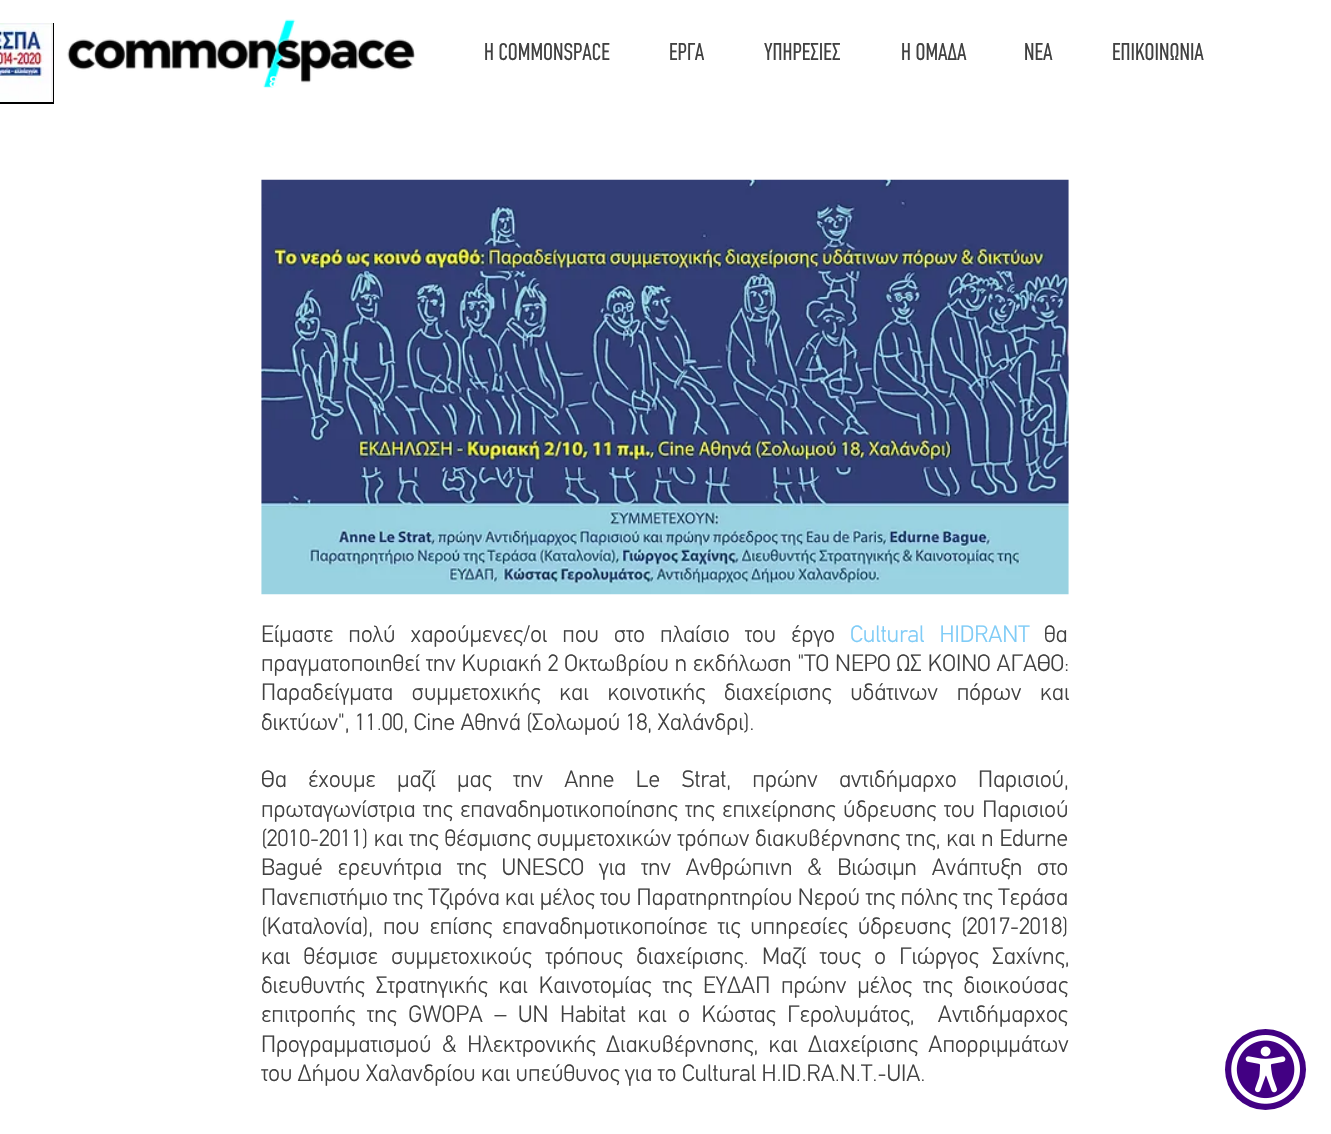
void draw(SkCanvas* canvas) {
	SkPaint paint;
	paint.setAntiAlias(true);
	auto spacedText = [&](const char* s, float x, float y, const SkFont& font, const SkPaint& ink, float letter, float word) {
		std::vector<SkGlyphID> glyphs(font.countText(s, strlen(s), SkTextEncoding::kUTF8));
		std::vector<float> xs(glyphs.size());
		font.textToGlyphs(s, strlen(s), SkTextEncoding::kUTF8, glyphs);
		font.getXPos(glyphs, xs, x);
		float extra = 0;
		for (size_t i = 0; i < glyphs.size(); i++) {
			xs[i] += extra;
			extra += letter + word * (glyphs[i] == font.unicharToGlyph(' '));
		}
		canvas->drawTextBlob(SkTextBlob::MakeFromPosHGlyphs(glyphs, xs, y, font), 0, 0, ink);
	};
	canvas->clear(0xffffffff);
	paint.setColor(0xff000000);
	canvas->drawRect(SkRect::MakeXYWH(0, 23, 54, 81), paint);
	canvas->drawImageRect(SkImages::DeferredFromEncodedData(SkData::MakeFromFileName("img1.png")), SkRect::MakeXYWH(0, 23, 53, 79), SkSamplingOptions());
	canvas->drawImageRect(SkImages::DeferredFromEncodedData(SkData::MakeFromFileName("img2.png")), SkRect::MakeXYWH(67, 19, 348, 69), SkSamplingOptions());
	SkFont f1(fontMgr->matchFamilyStyle("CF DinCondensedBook", SkFontStyle::Normal()), 23.75);
	f1.setSubpixel(true);
	paint.setColor(0xff414141);
	canvas->drawString("Η COMMONSPACE", 484, 60, f1, paint);
	canvas->drawString("ΕΡΓΑ", 669, 60, f1, paint);
	canvas->drawString("ΥΠΗΡΕΣΙΕΣ", 764, 60, f1, paint);
	canvas->drawString("Η ΟΜΑΔΑ", 901, 60, f1, paint);
	canvas->drawString("ΝΕΑ", 1024, 60, f1, paint);
	canvas->drawString("ΕΠΙΚΟΙΝΩΝΙΑ", 1112, 60, f1, paint);
	canvas->drawImageRect(SkImages::DeferredFromEncodedData(SkData::MakeFromFileName("img3.png")), SkRect::MakeXYWH(261, 179, 808, 416), SkSamplingOptions());
	SkFont f2(fontMgr->matchFamilyStyle("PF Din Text", SkFontStyle(300, SkFontStyle::kNormal_Width, SkFontStyle::kUpright_Slant)), 23.75);
	f2.setSubpixel(true);
	spacedText("Είμαστε πολύ χαρούμενες/οι που στο πλαίσιο του έργο", 261, 642, f2, paint, 0, 9.75);
	paint.setColor(0xff7fccf7);
	spacedText("Cultural HIDRANT", 850, 642, f2, paint, 0, 9.75);
	paint.setColor(0xff414141);
	canvas->drawString("θα", 1044, 642, f2, paint);
	spacedText("πραγματοποιηθεί την Κυριακή 2 Οκτωβρίου η εκδήλωση \"ΤΟ ΝΕΡΟ ΩΣ ΚΟΙΝΟ ΑΓΑΘΟ:", 261, 671, f2, paint, 0, 0.5);
	spacedText("Παραδείγματα συμμετοχικής και κοινοτικής διαχείρισης υδάτινων πόρων και", 261, 700, f2, paint, 0, 13.5);
	canvas->drawString("δικτύων\", 11.00, Cine Αθηνά (Σολωμού 18, Χαλάνδρι).", 261, 730, f2, paint);
	spacedText("Θα έχουμε μαζί μας την Anne Le Strat, πρώην αντιδήμαρχο Παρισιού,", 261, 787, f2, paint, 0, 16);
	spacedText("πρωταγωνίστρια της επαναδημοτικοποίησης της επιχείρησης ύδρευσης του Παρισιού", 261, 817, f2, paint, 0, 2);
	spacedText("(2010-2011) και της θέσμισης συμμετοχικών τρόπων διακυβέρνησης της, και η Edurne", 261, 846, f2, paint, 0, 0.5);
	spacedText("Bagué ερευνήτρια της UNESCO για την Ανθρώπινη & Βιώσιμη Ανάπτυξη στο", 261, 875, f2, paint, 0, 9.5);
	canvas->drawString("Πανεπιστήμιο της Τζιρόνα και μέλος του Παρατηρητηρίου Νερού της πόλης της Τεράσα", 261, 905, f2, paint);
	spacedText("(Καταλονία), που επίσης επαναδημοτικοποίησε τις υπηρεσίες ύδρευσης (2017-2018)", 261, 934, f2, paint, 0, 4.5);
	spacedText("και θέσμισε συμμετοχικούς τρόπους διαχείρισης. Μαζί τους ο Γιώργος Σαχίνης,", 261, 964, f2, paint, 0, 8);
	spacedText("διευθυντής Στρατηγικής και Καινοτομίας της ΕΥΔΑΠ πρώην μέλος της διοικούσας", 261, 993, f2, paint, 0, 5.5);
	spacedText("επιτροπής της GWOPA – UN Habitat και ο Κώστας Γερολυμάτος,  Αντιδήμαρχος", 261, 1022, f2, paint, 0, 6.25);
	spacedText("Προγραμματισμού & Ηλεκτρονικής Διακυβέρνησης, και Διαχείρισης Απορριμμάτων", 261, 1052, f2, paint, 0, 5);
	canvas->drawString("του Δήμου Χαλανδρίου και υπεύθυνος για το Cultural H.ID.RA.N.T.-UIA.", 261, 1081, f2, paint);
	SkFont f3(fontMgr->matchFamilyStyle("Liberation Sans", SkFontStyle::Normal()), 20);
	f3.setSubpixel(true);
	paint.setColor(0xfff6ffff);
	canvas->drawString("ε", 269, 87, f3, paint);
	paint.setColor(0xff420083);
	canvas->drawCircle(1265.5, 1069.5, 40.5, paint);
	canvas->drawImageRect(SkImages::DeferredFromEncodedData(SkData::MakeFromFileName("img4.png")), SkRect::MakeXYWH(1231, 1035, 69, 69), SkSamplingOptions());
}
